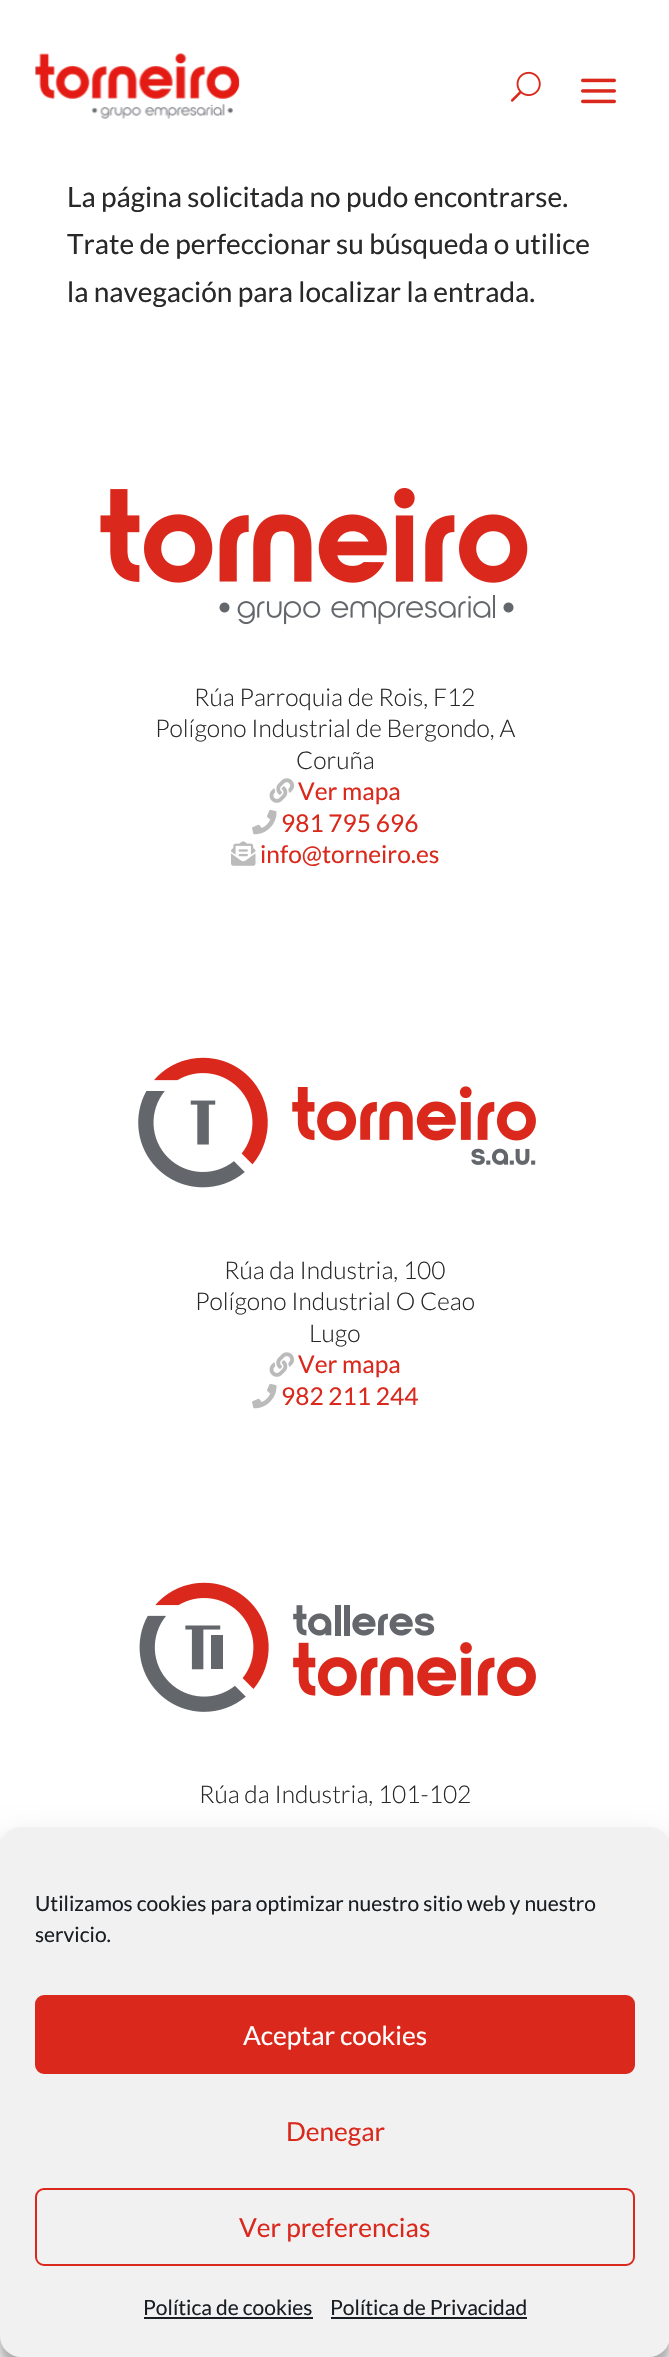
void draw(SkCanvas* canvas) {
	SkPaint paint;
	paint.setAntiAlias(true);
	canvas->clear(0xffffffff);
	canvas->drawImageRect(SkImages::DeferredFromEncodedData(SkData::MakeFromFileName("img1.png")), SkRect::MakeXYWH(35, 53, 205, 66), SkSamplingOptions());
	canvas->drawImageRect(SkImages::DeferredFromEncodedData(SkData::MakeFromFileName("img2.png")), SkRect::MakeXYWH(510, 71, 31, 31), SkSamplingOptions());
	canvas->drawImageRect(SkImages::DeferredFromEncodedData(SkData::MakeFromFileName("img3.png")), SkRect::MakeXYWH(581, 78, 35, 26), SkSamplingOptions());
	SkFont f1(fontMgr->matchFamilyStyle("Lato", SkFontStyle::Normal()), 28);
	f1.setSubpixel(true);
	paint.setColor(0xff282828);
	canvas->drawString("La página solicitada no pudo encontrarse.", 67, 207, f1, paint);
	canvas->drawString("Trate de perfeccionar su búsqueda o utilice", 67, 254, f1, paint);
	canvas->drawString("la navegación para localizar la entrada.", 67, 302, f1, paint);
	canvas->drawImageRect(SkImages::DeferredFromEncodedData(SkData::MakeFromFileName("img4.png")), SkRect::MakeXYWH(100, 488, 428, 137), SkSamplingOptions());
	SkFont f2(fontMgr->matchFamilyStyle("Lato", SkFontStyle(300, SkFontStyle::kNormal_Width, SkFontStyle::kUpright_Slant)), 24.5);
	f2.setSubpixel(true);
	canvas->drawString("Rúa Parroquia de Rois, F12", 194, 706, f2, paint);
	canvas->drawString("Polígono Industrial de Bergondo, A", 155, 737, f2, paint);
	canvas->drawString("Coruña", 296, 769, f2, paint);
	canvas->drawImageRect(SkImages::DeferredFromEncodedData(SkData::MakeFromFileName("img5.png")), SkRect::MakeXYWH(269, 778, 25, 25), SkSamplingOptions());
	SkFont f3(fontMgr->matchFamilyStyle("Lato", SkFontStyle::Normal()), 24.5);
	f3.setSubpixel(true);
	paint.setColor(0xffda291c);
	canvas->drawString("Ver mapa", 298, 800, f3, paint);
	canvas->drawImageRect(SkImages::DeferredFromEncodedData(SkData::MakeFromFileName("img6.png")), SkRect::MakeXYWH(252, 809, 25, 26), SkSamplingOptions());
	canvas->drawString("981 795 696", 281, 832, f3, paint);
	canvas->drawImageRect(SkImages::DeferredFromEncodedData(SkData::MakeFromFileName("img7.png")), SkRect::MakeXYWH(231, 841, 25, 25), SkSamplingOptions());
	canvas->drawString("info@torneiro.es", 260, 863, f3, paint);
	canvas->drawImageRect(SkImages::DeferredFromEncodedData(SkData::MakeFromFileName("img8.png")), SkRect::MakeXYWH(138, 1057, 398, 131), SkSamplingOptions());
	paint.setColor(0xff282828);
	canvas->drawString("Rúa da Industria, 100", 224, 1279, f2, paint);
	canvas->drawString("Polígono Industrial O Ceao", 195, 1310, f2, paint);
	canvas->drawString("Lugo", 309, 1342, f2, paint);
	canvas->drawImageRect(SkImages::DeferredFromEncodedData(SkData::MakeFromFileName("img5.png")), SkRect::MakeXYWH(269, 1352, 25, 25), SkSamplingOptions());
	paint.setColor(0xffda291c);
	canvas->drawString("Ver mapa", 298, 1373, f3, paint);
	canvas->drawImageRect(SkImages::DeferredFromEncodedData(SkData::MakeFromFileName("img6.png")), SkRect::MakeXYWH(252, 1383, 25, 26), SkSamplingOptions());
	canvas->drawString("982 211 244", 281, 1405, f3, paint);
	canvas->drawImageRect(SkImages::DeferredFromEncodedData(SkData::MakeFromFileName("img9.png")), SkRect::MakeXYWH(139, 1582, 397, 130), SkSamplingOptions());
	paint.setColor(0xff282828);
	canvas->drawString("Rúa da Industria, 101-102", 199, 1803, f2, paint);
	paint.setColor(0x3b000000);
	paint.setMaskFilter(SkMaskFilter::MakeBlur(kNormal_SkBlurStyle, 5));
	canvas->drawRoundRect(SkRect::MakeXYWH(0, 1838, 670, 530), 21, 21, paint);
	paint.setMaskFilter(nullptr);
	paint.setColor(0x30000000);
	paint.setMaskFilter(SkMaskFilter::MakeBlur(kNormal_SkBlurStyle, 17.5));
	canvas->drawRoundRect(SkRect::MakeXYWH(0, 1845, 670, 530), 21, 21, paint);
	paint.setMaskFilter(nullptr);
	paint.setColor(0xfff1f1f1);
	canvas->drawRoundRect(SkRect::MakeXYWH(0, 1827, 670, 530), 21, 21, paint);
	SkFont f4(fontMgr->matchFamilyStyle("Lato", SkFontStyle::Normal()), 21);
	f4.setSubpixel(true);
	paint.setColor(0xff191e23);
	canvas->drawString("Utilizamos cookies para optimizar nuestro sitio web y nuestro", 35, 1911, f4, paint);
	canvas->drawString("servicio.", 35, 1942, f4, paint);
	paint.setColor(0xffda281c);
	canvas->drawRoundRect(SkRect::MakeXYWH(36, 1996, 598, 77), 8, 8, paint);
	paint.setStroke(true);
	paint.setStrokeWidth(2);
	canvas->drawRoundRect(SkRect::MakeXYWH(36, 1996, 598, 77), 8, 8, paint);
	SkFont f5(fontMgr->matchFamilyStyle("Lato", SkFontStyle::Normal()), 26.25);
	f5.setSubpixel(true);
	paint.setStroke(false);
	paint.setColor(0xffffffff);
	canvas->drawString("Aceptar cookies", 243, 2045, f5, paint);
	paint.setColor(0xffda291c);
	canvas->drawString("Denegar", 286, 2141, f5, paint);
	paint.setStroke(true);
	paint.setColor(0xffda281c);
	canvas->drawRoundRect(SkRect::MakeXYWH(36, 2189, 598, 76), 8, 8, paint);
	paint.setStroke(false);
	paint.setColor(0xffda291c);
	canvas->drawString("Ver preferencias", 239, 2237, f5, paint);
	paint.setColor(0xff191e23);
	canvas->drawString("Política de cookies", 143, 2315, f4, paint);
	canvas->drawRect(SkRect::MakeXYWH(144, 2317, 169, 2), paint);
	canvas->drawString("Política de Privacidad", 330, 2315, f4, paint);
	canvas->drawRect(SkRect::MakeXYWH(331, 2317, 196, 2), paint);
}
